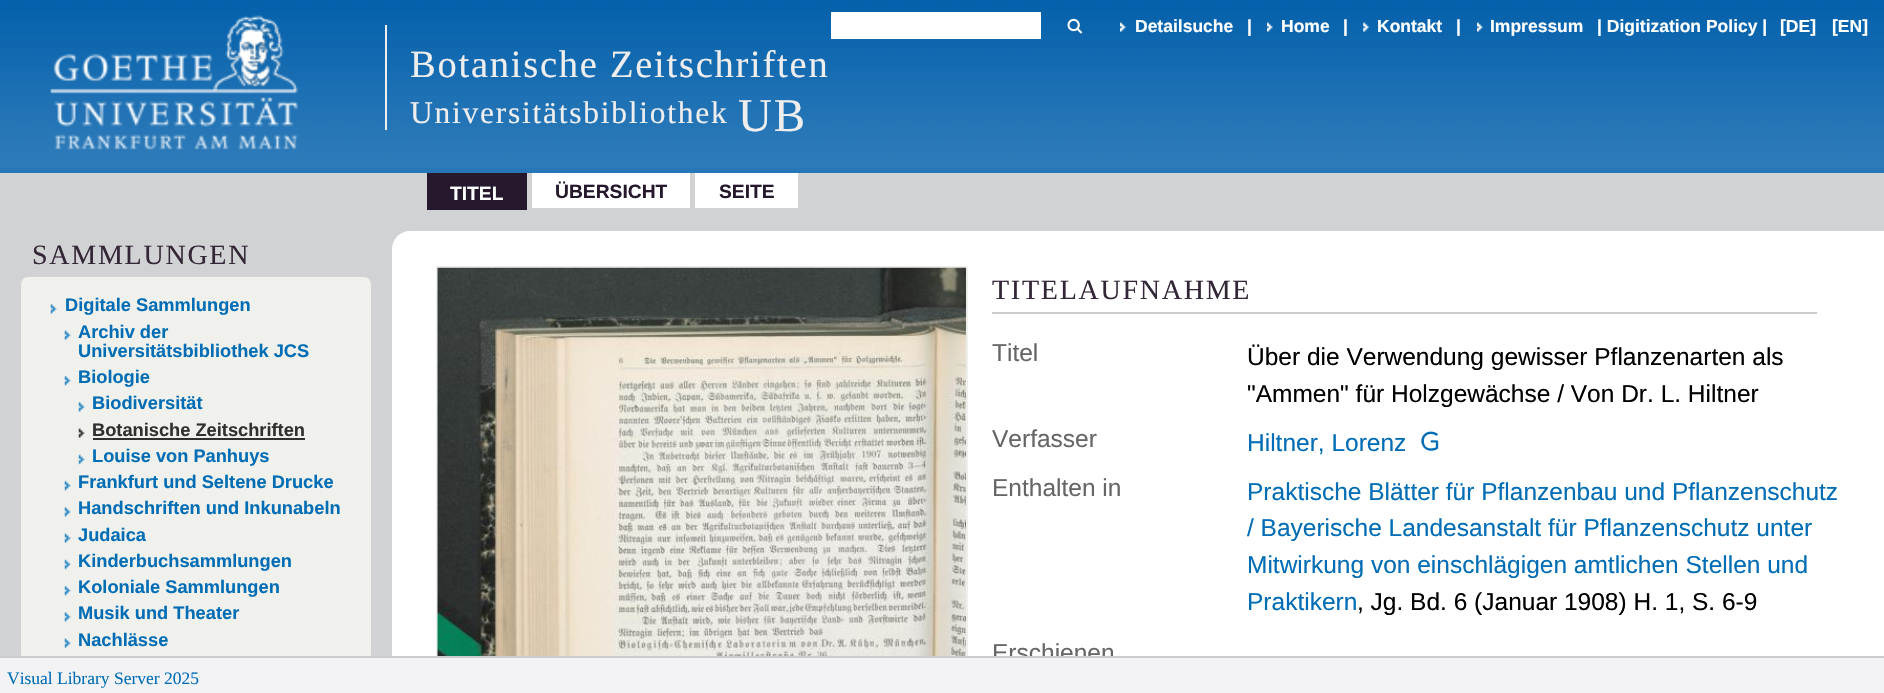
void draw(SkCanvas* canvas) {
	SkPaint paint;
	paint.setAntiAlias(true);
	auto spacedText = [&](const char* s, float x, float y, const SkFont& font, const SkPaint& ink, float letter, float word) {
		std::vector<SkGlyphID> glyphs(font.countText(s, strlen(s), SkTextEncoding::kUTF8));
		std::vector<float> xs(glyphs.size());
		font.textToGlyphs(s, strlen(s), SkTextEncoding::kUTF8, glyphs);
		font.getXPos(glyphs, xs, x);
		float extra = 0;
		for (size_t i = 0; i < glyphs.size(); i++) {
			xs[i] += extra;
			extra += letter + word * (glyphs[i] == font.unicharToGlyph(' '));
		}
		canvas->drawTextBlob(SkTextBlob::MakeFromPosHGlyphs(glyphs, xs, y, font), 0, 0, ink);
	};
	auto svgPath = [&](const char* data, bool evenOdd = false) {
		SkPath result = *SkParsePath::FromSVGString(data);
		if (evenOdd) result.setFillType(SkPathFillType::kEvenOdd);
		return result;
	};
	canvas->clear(0xff2776b8);
	canvas->drawImageRect(SkImages::DeferredFromEncodedData(SkData::MakeFromFileName("img1.png")), SkRect::MakeXYWH(0, 0, 1884, 168), SkSamplingOptions());
	canvas->drawImageRect(SkImages::DeferredFromEncodedData(SkData::MakeFromFileName("img2.png")), SkRect::MakeXYWH(50, 15, 248, 135), SkSamplingOptions());
	paint.setColor(0xffffffff);
	canvas->drawRect(SkRect::MakeXYWH(831, 12, 210, 27), paint);
	canvas->drawImageRect(SkImages::DeferredFromEncodedData(SkData::MakeFromFileName("img3.png")), SkRect::MakeXYWH(1067, 18, 16, 16), SkSamplingOptions());
	canvas->drawImageRect(SkImages::DeferredFromEncodedData(SkData::MakeFromFileName("img4.png")), SkRect::MakeXYWH(1120, 22, 6, 10), SkSamplingOptions());
	SkFont f1(fontMgr->matchFamilyStyle("Liberation Sans", SkFontStyle::Bold()), 17.5);
	f1.setSubpixel(true);
	canvas->drawString("Detailsuche", 1135, 32, f1, paint);
	canvas->drawString("|", 1247, 32, f1, paint);
	canvas->drawImageRect(SkImages::DeferredFromEncodedData(SkData::MakeFromFileName("img5.png")), SkRect::MakeXYWH(1267, 22, 6, 10), SkSamplingOptions());
	canvas->drawString("Home", 1281, 32, f1, paint);
	canvas->drawString("|", 1343, 32, f1, paint);
	canvas->drawImageRect(SkImages::DeferredFromEncodedData(SkData::MakeFromFileName("img6.png")), SkRect::MakeXYWH(1363, 22, 6, 10), SkSamplingOptions());
	canvas->drawString("Kontakt", 1377, 32, f1, paint);
	canvas->drawString("|", 1456, 32, f1, paint);
	canvas->drawImageRect(SkImages::DeferredFromEncodedData(SkData::MakeFromFileName("img4.png")), SkRect::MakeXYWH(1477, 22, 6, 10), SkSamplingOptions());
	canvas->drawString("Impressum", 1490, 32, f1, paint);
	canvas->drawString("| Digitization Policy |", 1597, 32, f1, paint);
	canvas->drawString("[DE]", 1780, 32, f1, paint);
	canvas->drawString("[EN]", 1832, 32, f1, paint);
	paint.setColor(0xffeeeeee);
	canvas->drawRect(SkRect::MakeXYWH(385, 25, 2, 105), paint);
	SkFont f2(fontMgr->matchFamilyStyle("Liberation Serif", SkFontStyle::Normal()), 38.5);
	f2.setSubpixel(true);
	spacedText("Botanische Zeitschriften", 410, 77, f2, paint, 1.75, 0);
	SkFont f3(fontMgr->matchFamilyStyle("Liberation Serif", SkFontStyle::Normal()), 31.5);
	f3.setSubpixel(true);
	spacedText("Universitätsbibliothek", 410, 123, f3, paint, 1.75, 0);
	SkFont f4(fontMgr->matchFamilyStyle("Liberation Serif", SkFontStyle::Normal()), 47);
	f4.setSubpixel(true);
	spacedText("UB", 738, 131, f4, paint, 1.75, 0);
	paint.setColor(0xffd1d2d4);
	canvas->drawRect(SkRect::MakeXYWH(0, 173, 1884, 58), paint);
	paint.setColor(0xff25182c);
	canvas->drawRect(SkRect::MakeXYWH(427, 173, 100, 37), paint);
	SkFont f5(fontMgr->matchFamilyStyle("Liberation Sans", SkFontStyle::Bold()), 19.25);
	f5.setSubpixel(true);
	paint.setColor(0xffffffff);
	canvas->drawString("TITEL", 450, 200, f5, paint);
	canvas->drawRect(SkRect::MakeXYWH(532, 173, 158, 35), paint);
	paint.setColor(0xff25182c);
	canvas->drawString("ÜBERSICHT", 555, 198, f5, paint);
	paint.setColor(0xffffffff);
	canvas->drawRect(SkRect::MakeXYWH(695, 173, 103, 35), paint);
	paint.setColor(0xff25182c);
	canvas->drawString("SEITE", 719, 198, f5, paint);
	paint.setColor(0xffd1d2d4);
	canvas->drawRect(SkRect::MakeXYWH(0, 231, 410, 425), paint);
	SkFont f6(fontMgr->matchFamilyStyle("Liberation Serif", SkFontStyle::Normal()), 28);
	f6.setSubpixel(true);
	paint.setColor(0xff332636);
	spacedText("SAMMLUNGEN", 32, 264, f6, paint, 1.75, 0);
	paint.setColor(0xfff0f0ec);
	canvas->drawRoundRect(SkRect::MakeXYWH(22, 278, 348, 383), 6, 6, paint);
	paint.setStroke(true);
	paint.setStrokeWidth(2);
	canvas->drawRoundRect(SkRect::MakeXYWH(22, 278, 348, 383), 6, 6, paint);
	canvas->drawImageRect(SkImages::DeferredFromEncodedData(SkData::MakeFromFileName("img7.png")), SkRect::MakeXYWH(50, 304, 7, 10), SkSamplingOptions());
	SkFont f7(fontMgr->matchFamilyStyle("Liberation Sans", SkFontStyle::Bold()), 18.25);
	f7.setSubpixel(true);
	paint.setStroke(false);
	paint.setColor(0xff006db5);
	canvas->drawString("Digitale Sammlungen", 65, 311, f7, paint);
	canvas->drawImageRect(SkImages::DeferredFromEncodedData(SkData::MakeFromFileName("img8.png")), SkRect::MakeXYWH(64, 330, 7, 10), SkSamplingOptions());
	canvas->drawString("Archiv der", 78, 338, f7, paint);
	canvas->drawString("Universitätsbibliothek JCS", 78, 357, f7, paint);
	canvas->drawImageRect(SkImages::DeferredFromEncodedData(SkData::MakeFromFileName("img9.png")), SkRect::MakeXYWH(64, 375, 7, 11), SkSamplingOptions());
	canvas->drawString("Biologie", 78, 383, f7, paint);
	canvas->drawImageRect(SkImages::DeferredFromEncodedData(SkData::MakeFromFileName("img10.png")), SkRect::MakeXYWH(78, 402, 7, 10), SkSamplingOptions());
	canvas->drawString("Biodiversität", 92, 409, f7, paint);
	canvas->drawImageRect(SkImages::DeferredFromEncodedData(SkData::MakeFromFileName("img11.png")), SkRect::MakeXYWH(78, 428, 7, 10), SkSamplingOptions());
	paint.setColor(0xff303030);
	canvas->drawString("Botanische Zeitschriften", 92, 436, f7, paint);
	canvas->drawRect(SkRect::MakeXYWH(93, 438, 212, 2), paint);
	canvas->drawImageRect(SkImages::DeferredFromEncodedData(SkData::MakeFromFileName("img12.png")), SkRect::MakeXYWH(78, 454, 7, 11), SkSamplingOptions());
	paint.setColor(0xff006db5);
	canvas->drawString("Louise von Panhuys", 92, 462, f7, paint);
	canvas->drawImageRect(SkImages::DeferredFromEncodedData(SkData::MakeFromFileName("img9.png")), SkRect::MakeXYWH(64, 480, 7, 11), SkSamplingOptions());
	canvas->drawString("Frankfurt und Seltene Drucke", 78, 488, f7, paint);
	canvas->drawImageRect(SkImages::DeferredFromEncodedData(SkData::MakeFromFileName("img7.png")), SkRect::MakeXYWH(64, 507, 7, 10), SkSamplingOptions());
	canvas->drawString("Handschriften und Inkunabeln", 78, 514, f7, paint);
	canvas->drawImageRect(SkImages::DeferredFromEncodedData(SkData::MakeFromFileName("img8.png")), SkRect::MakeXYWH(64, 533, 7, 10), SkSamplingOptions());
	canvas->drawString("Judaica", 78, 541, f7, paint);
	canvas->drawImageRect(SkImages::DeferredFromEncodedData(SkData::MakeFromFileName("img13.png")), SkRect::MakeXYWH(64, 559, 7, 11), SkSamplingOptions());
	canvas->drawString("Kinderbuchsammlungen", 78, 567, f7, paint);
	canvas->drawImageRect(SkImages::DeferredFromEncodedData(SkData::MakeFromFileName("img9.png")), SkRect::MakeXYWH(64, 585, 7, 11), SkSamplingOptions());
	canvas->drawString("Koloniale Sammlungen", 78, 593, f7, paint);
	canvas->drawImageRect(SkImages::DeferredFromEncodedData(SkData::MakeFromFileName("img7.png")), SkRect::MakeXYWH(64, 612, 7, 10), SkSamplingOptions());
	canvas->drawString("Musik und Theater", 78, 619, f7, paint);
	canvas->drawImageRect(SkImages::DeferredFromEncodedData(SkData::MakeFromFileName("img8.png")), SkRect::MakeXYWH(64, 638, 7, 10), SkSamplingOptions());
	canvas->drawString("Nachlässe", 78, 646, f7, paint);
	paint.setColor(0xffffffff);
	canvas->drawPath(svgPath("M410 231H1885V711H392V249C392 239 400 231 410 231Z"), paint);
	paint.setStroke(true);
	paint.setColor(0xffeeeeec);
	canvas->drawRect(SkRect::MakeXYWH(437, 267, 530, 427), paint);
	canvas->drawImageRect(SkImages::DeferredFromEncodedData(SkData::MakeFromFileName("img14.png")), SkRect::MakeXYWH(437, 267, 529, 389), SkSamplingOptions());
	paint.setStroke(false);
	paint.setColor(0xffcccccc);
	canvas->drawRect(SkRect::MakeXYWH(992, 312, 825, 2), paint);
	paint.setColor(0xff332636);
	spacedText("TITELAUFNAHME", 992, 299, f6, paint, 1.75, 0);
	SkFont f8(fontMgr->matchFamilyStyle("Liberation Sans", SkFontStyle::Normal()), 24.5);
	f8.setSubpixel(true);
	paint.setColor(0xff666666);
	canvas->drawString("Titel", 992, 361, f8, paint);
	paint.setColor(0xff000000);
	canvas->drawString("Über die Verwendung gewisser Pflanzenarten als", 1247, 365, f8, paint);
	canvas->drawString("\"Ammen\" für Holzgewächse / Von Dr. L. Hiltner", 1247, 402, f8, paint);
	paint.setColor(0xff666666);
	canvas->drawString("Verfasser", 992, 447, f8, paint);
	paint.setColor(0xff006db5);
	canvas->drawString("Hiltner, Lorenz", 1247, 451, f8, paint);
	canvas->drawImageRect(SkImages::DeferredFromEncodedData(SkData::MakeFromFileName("img15.png")), SkRect::MakeXYWH(1421, 431, 18, 20), SkSamplingOptions());
	paint.setColor(0xff666666);
	canvas->drawString("Enthalten in", 992, 496, f8, paint);
	paint.setColor(0xff006db5);
	canvas->drawString("Praktische Blätter für Pflanzenbau und Pflanzenschutz", 1247, 500, f8, paint);
	canvas->drawString("/ Bayerische Landesanstalt für Pflanzenschutz unter", 1247, 536, f8, paint);
	canvas->drawString("Mitwirkung von einschlägigen amtlichen Stellen und", 1247, 573, f8, paint);
	canvas->drawString("Praktikern", 1247, 610, f8, paint);
	paint.setColor(0xff000000);
	canvas->drawString(", Jg. Bd. 6 (Januar 1908) H. 1, S. 6-9", 1357, 610, f8, paint);
	paint.setColor(0xff666666);
	canvas->drawString("Erschienen", 992, 661, f8, paint);
	paint.setColor(0xfff3f3f6);
	canvas->drawRect(SkRect::MakeXYWH(0, 658, 1884, 35), paint);
	paint.setColor(0xffcccccc);
	canvas->drawRect(SkRect::MakeXYWH(0, 656, 1884, 2), paint);
	SkFont f9(fontMgr->matchFamilyStyle("Liberation Serif", SkFontStyle::Normal()), 17.5);
	f9.setSubpixel(true);
	paint.setColor(0xff006db5);
	canvas->drawString("Visual Library Server 2025", 7, 684, f9, paint);
}
